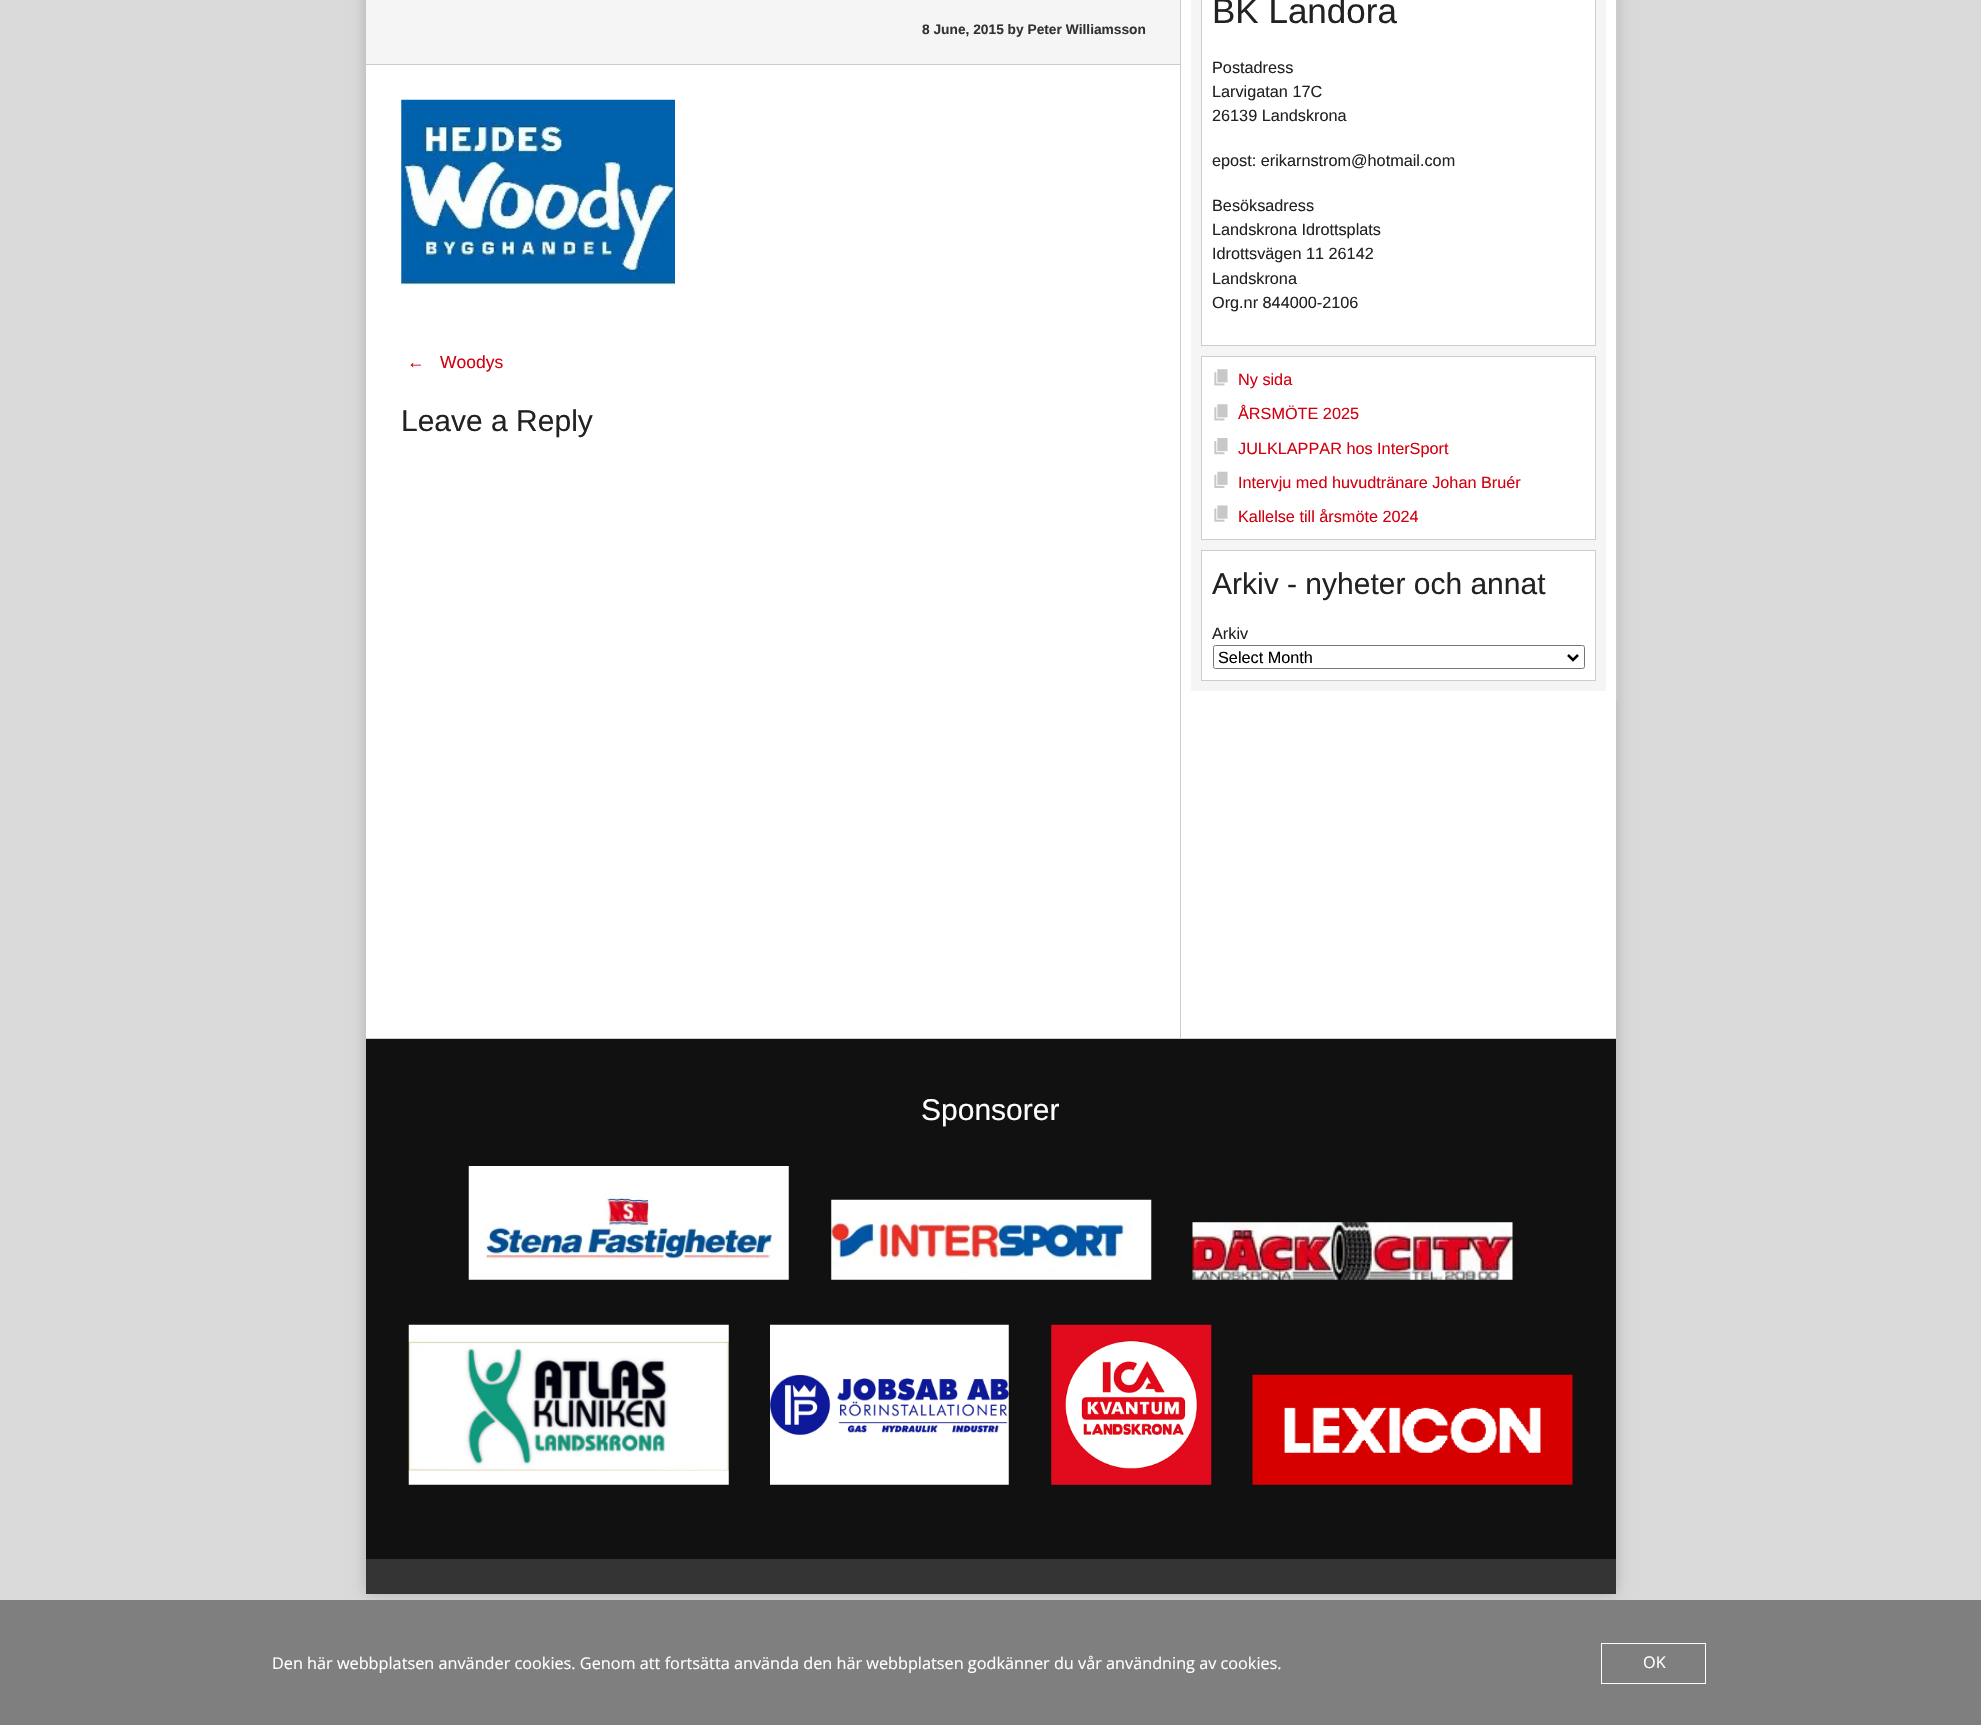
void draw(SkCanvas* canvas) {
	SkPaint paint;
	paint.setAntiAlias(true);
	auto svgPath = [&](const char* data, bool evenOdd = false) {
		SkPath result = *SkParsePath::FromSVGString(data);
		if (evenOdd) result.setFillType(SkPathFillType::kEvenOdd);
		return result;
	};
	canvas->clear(0xffdadada);
	paint.setColor(0x33000000);
	paint.setMaskFilter(SkMaskFilter::MakeBlur(kNormal_SkBlurStyle, 7.5));
	canvas->drawRect(SkRect::MakeXYWH(366, -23, 1250, 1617), paint);
	paint.setMaskFilter(nullptr);
	paint.setColor(0xffffffff);
	canvas->drawRect(SkRect::MakeXYWH(366, 0, 1250, 1038), paint);
	paint.setColor(0xffcccccc);
	canvas->drawPath(svgPath("M368 1038H1181V-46H1180V1038Z"), paint);
	paint.setColor(0xfff5f5f5);
	canvas->drawRect(SkRect::MakeXYWH(366, 0, 814, 64), paint);
	paint.setColor(0xffcccccc);
	canvas->drawRect(SkRect::MakeXYWH(366, 64, 814, 1), paint);
	SkFont f1(fontMgr->matchFamilyStyle("Liberation Sans", SkFontStyle::Bold()), 13.75);
	f1.setSubpixel(true);
	paint.setColor(0xff333333);
	canvas->drawString("8 June, 2015 by Peter Williamsson", 922, 34, f1, paint);
	canvas->drawImageRect(SkImages::DeferredFromEncodedData(SkData::MakeFromFileName("img1.png")), SkRect::MakeXYWH(401, 99, 274, 186), SkSamplingOptions());
	SkFont f2(fontMgr->matchFamilyStyle("Liberation Sans", SkFontStyle::Normal()), 17.5);
	f2.setSubpixel(true);
	paint.setColor(0xffd4000f);
	canvas->drawString("←", 407, 368, f2, paint);
	canvas->drawString("Woodys", 440, 368, f2, paint);
	SkFont f3(fontMgr->matchFamilyStyle("Liberation Sans", SkFontStyle::Normal()), 30);
	f3.setSubpixel(true);
	paint.setColor(0xff222222);
	canvas->drawString("Leave a Reply", 401, 431, f3, paint);
	paint.setColor(0xffcccccc);
	canvas->drawRect(SkRect::MakeXYWH(1616, 0, 2, 701), paint);
	paint.setStroke(true);
	paint.setStrokeWidth(1);
	canvas->drawRect(SkRect::MakeXYWH(1201.5, -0.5, 394, 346), paint);
	paint.setStrokeWidth(10);
	paint.setColor(0xfff5f5f5);
	canvas->drawRect(SkRect::MakeXYWH(1196, -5, 405, 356), paint);
	SkFont f4(fontMgr->matchFamilyStyle("Liberation Sans", SkFontStyle::Normal()), 35);
	f4.setSubpixel(true);
	paint.setStroke(false);
	paint.setColor(0xff222222);
	canvas->drawString("BK Landora", 1212, 23, f4, paint);
	SkFont f5(fontMgr->matchFamilyStyle("Liberation Sans", SkFontStyle::Normal()), 16.25);
	f5.setSubpixel(true);
	canvas->drawString("Postadress", 1212, 73, f5, paint);
	canvas->drawString("Larvigatan 17C", 1212, 97, f5, paint);
	canvas->drawString("26139 Landskrona", 1212, 121, f5, paint);
	canvas->drawString("epost: erikarnstrom@hotmail.com", 1212, 166, f5, paint);
	canvas->drawString("Besöksadress", 1212, 211, f5, paint);
	canvas->drawString("Landskrona Idrottsplats", 1212, 235, f5, paint);
	canvas->drawString("Idrottsvägen 11 26142", 1212, 259, f5, paint);
	canvas->drawString("Landskrona", 1212, 284, f5, paint);
	canvas->drawString("Org.nr 844000-2106", 1212, 308, f5, paint);
	paint.setStroke(true);
	paint.setStrokeWidth(1);
	paint.setColor(0xffcccccc);
	canvas->drawRect(SkRect::MakeXYWH(1201.5, 356.5, 394, 183), paint);
	paint.setStrokeWidth(10);
	paint.setColor(0xfff5f5f5);
	canvas->drawRect(SkRect::MakeXYWH(1196, 351, 405, 194), paint);
	canvas->drawImageRect(SkImages::DeferredFromEncodedData(SkData::MakeFromFileName("img2.png")), SkRect::MakeXYWH(1214, 369, 14, 17), SkSamplingOptions());
	paint.setStroke(false);
	paint.setColor(0xffd4000f);
	canvas->drawString("Ny sida", 1238, 385, f5, paint);
	canvas->drawImageRect(SkImages::DeferredFromEncodedData(SkData::MakeFromFileName("img2.png")), SkRect::MakeXYWH(1214, 404, 14, 17), SkSamplingOptions());
	canvas->drawString("ÅRSMÖTE 2025", 1238, 419, f5, paint);
	canvas->drawImageRect(SkImages::DeferredFromEncodedData(SkData::MakeFromFileName("img3.png")), SkRect::MakeXYWH(1214, 438, 14, 17), SkSamplingOptions());
	canvas->drawString("JULKLAPPAR hos InterSport", 1238, 454, f5, paint);
	canvas->drawImageRect(SkImages::DeferredFromEncodedData(SkData::MakeFromFileName("img4.png")), SkRect::MakeXYWH(1214, 471, 14, 17), SkSamplingOptions());
	canvas->drawString("Intervju med huvudtränare Johan Bruér", 1238, 488, f5, paint);
	canvas->drawImageRect(SkImages::DeferredFromEncodedData(SkData::MakeFromFileName("img5.png")), SkRect::MakeXYWH(1214, 505, 14, 17), SkSamplingOptions());
	canvas->drawString("Kallelse till årsmöte 2024", 1238, 522, f5, paint);
	paint.setStroke(true);
	paint.setStrokeWidth(1);
	paint.setColor(0xffcccccc);
	canvas->drawRect(SkRect::MakeXYWH(1201.5, 550.5, 394, 130), paint);
	paint.setColor(0xff767676);
	canvas->drawRoundRect(SkRect::MakeXYWH(1213.5, 645.5, 371, 23), 2, 2, paint);
	paint.setStrokeWidth(2.5);
	paint.setColor(0xff000000);
	canvas->drawPath(svgPath("M1568 655L1573 660L1578 655"), paint);
	paint.setStrokeWidth(10);
	paint.setColor(0xfff5f5f5);
	canvas->drawRect(SkRect::MakeXYWH(1196, 545, 405, 141), paint);
	paint.setStroke(false);
	paint.setColor(0xff222222);
	canvas->drawString("Arkiv - nyheter och annat", 1212, 594, f3, paint);
	canvas->drawString("Arkiv", 1212, 639, f5, paint);
	paint.setColor(0xff000000);
	canvas->drawString("Select Month", 1218, 663, f5, paint);
	paint.setColor(0xff111111);
	canvas->drawRect(SkRect::MakeXYWH(366, 1039, 1250, 520), paint);
	paint.setColor(0xffcccccc);
	canvas->drawRect(SkRect::MakeXYWH(366, 1038, 1250, 1), paint);
	paint.setColor(0xffffffff);
	canvas->drawString("Sponsorer", 921, 1120, f3, paint);
	canvas->drawImageRect(SkImages::DeferredFromEncodedData(SkData::MakeFromFileName("img6.png")), SkRect::MakeXYWH(468, 1166, 321, 114), SkSamplingOptions());
	canvas->drawImageRect(SkImages::DeferredFromEncodedData(SkData::MakeFromFileName("img7.png")), SkRect::MakeXYWH(831, 1199, 321, 81), SkSamplingOptions());
	canvas->drawImageRect(SkImages::DeferredFromEncodedData(SkData::MakeFromFileName("img8.png")), SkRect::MakeXYWH(1192, 1222, 321, 58), SkSamplingOptions());
	canvas->drawImageRect(SkImages::DeferredFromEncodedData(SkData::MakeFromFileName("img9.png")), SkRect::MakeXYWH(408, 1324, 321, 161), SkSamplingOptions());
	canvas->drawImageRect(SkImages::DeferredFromEncodedData(SkData::MakeFromFileName("img10.png")), SkRect::MakeXYWH(770, 1324, 239, 161), SkSamplingOptions());
	canvas->drawImageRect(SkImages::DeferredFromEncodedData(SkData::MakeFromFileName("img11.png")), SkRect::MakeXYWH(1051, 1324, 161, 161), SkSamplingOptions());
	canvas->drawImageRect(SkImages::DeferredFromEncodedData(SkData::MakeFromFileName("img12.png")), SkRect::MakeXYWH(1252, 1374, 321, 111), SkSamplingOptions());
	paint.setColor(0xff333333);
	canvas->drawRect(SkRect::MakeXYWH(366, 1559, 1250, 35), paint);
	paint.setColor(0xf77c7c7c);
	canvas->drawRect(SkRect::MakeXYWH(0, 1600, 1981, 125), paint);
	SkFont f6(fontMgr->matchFamilyStyle("Open Sans", SkFontStyle::Normal()), 16.25);
	f6.setSubpixel(true);
	paint.setColor(0xffffffff);
	canvas->drawString("Den här webbplatsen använder cookies. Genom att fortsätta använda den här webbplatsen godkänner du vår användning av cookies.", 272, 1669, f6, paint);
	paint.setStroke(true);
	paint.setStrokeWidth(1);
	paint.setColor(0xfffefefe);
	canvas->drawRect(SkRect::MakeXYWH(1601.5, 1643.5, 104, 40), paint);
	paint.setStroke(false);
	paint.setColor(0xffffffff);
	canvas->drawString("OK", 1643, 1668, f6, paint);
}
